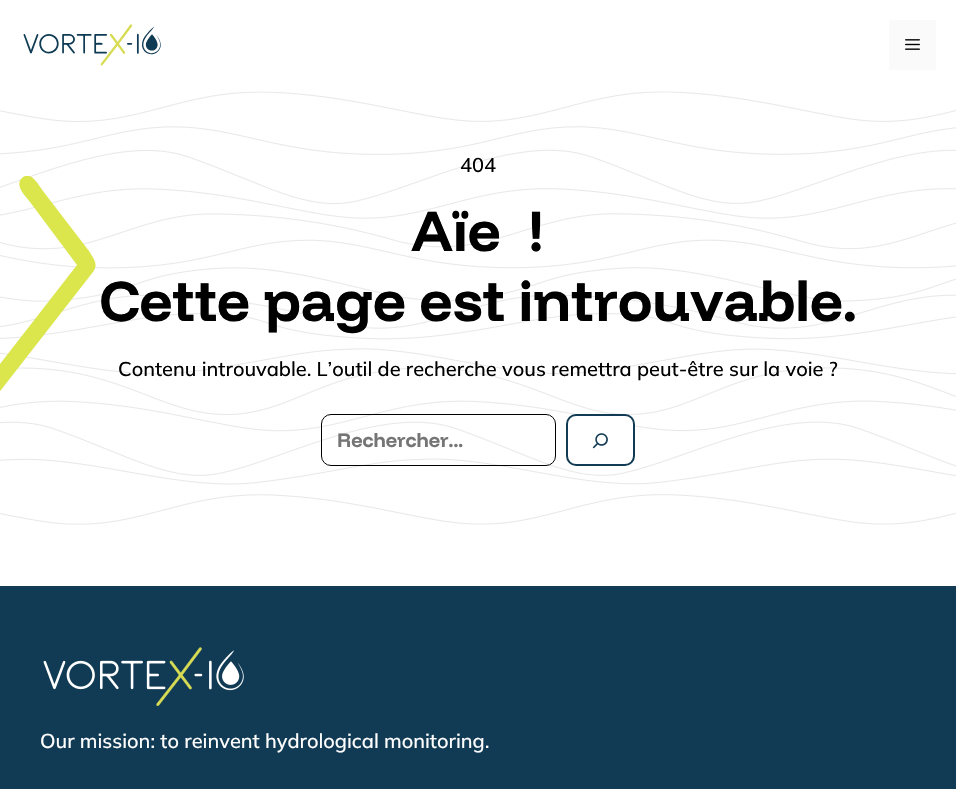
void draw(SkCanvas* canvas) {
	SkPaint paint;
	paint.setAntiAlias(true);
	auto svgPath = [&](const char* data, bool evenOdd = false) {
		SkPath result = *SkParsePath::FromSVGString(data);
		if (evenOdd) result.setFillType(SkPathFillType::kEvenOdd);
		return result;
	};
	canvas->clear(0xffffffff);
	canvas->drawImageRect(SkImages::DeferredFromEncodedData(SkData::MakeFromFileName("img1.png")), SkRect::MakeXYWH(23, 24, 138, 42), SkSamplingOptions());
	paint.setColor(0xfffafafa);
	canvas->drawRect(SkRect::MakeXYWH(889, 20, 47, 50), paint);
	canvas->drawImageRect(SkImages::DeferredFromEncodedData(SkData::MakeFromFileName("img2.png")), SkRect::MakeXYWH(905, 39, 15, 11), SkSamplingOptions());
	canvas->drawImageRect(SkImages::DeferredFromEncodedData(SkData::MakeFromFileName("img3.png")), SkRect::MakeXYWH(0, 91, 956, 434), SkSamplingOptions());
	canvas->save();
	canvas->clipRect(SkRect::MakeXYWH(0, 176, 96, 264));
	paint.setColor(0xffdbe64c);
	canvas->drawPath(svgPath("M93 272L-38 440H-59L77 265L30 202C26 196 13 185 23 177C32 171 39 186 43 191L89 251C93 258 99 264 93 272"), paint);
	canvas->restore();
	SkFont f1(fontMgr->matchFamilyStyle("Mulish", SkFontStyle(500, SkFontStyle::kNormal_Width, SkFontStyle::kUpright_Slant)), 20);
	f1.setSubpixel(true);
	paint.setColor(0xff000000);
	canvas->drawString("404", 460, 172, f1, paint);
	SkFont f2(fontMgr->matchFamilyStyle("Funnel Display", SkFontStyle(300, SkFontStyle::kNormal_Width, SkFontStyle::kUpright_Slant)), 58);
	f2.setSubpixel(true);
	canvas->drawString("Aïe", 411, 251, f2, paint);
	canvas->drawString("!", 528, 251, f2, paint);
	canvas->drawString("Cette page est introuvable.", 99, 321, f2, paint);
	canvas->drawString("Contenu introuvable. L’outil de recherche vous remettra peut-être sur la voie ?", 118, 376, f1, paint);
	paint.setStroke(true);
	paint.setStrokeWidth(1);
	canvas->drawRoundRect(SkRect::MakeXYWH(321.5, 414.5, 234, 51), 9.5, 9.5, paint);
	SkFont f3(fontMgr->matchFamilyStyle("Funnel Display", SkFontStyle(300, SkFontStyle::kNormal_Width, SkFontStyle::kUpright_Slant)), 20);
	f3.setSubpixel(true);
	paint.setStroke(false);
	paint.setColor(0xff757575);
	canvas->drawString("Rechercher...", 337, 447, f3, paint);
	paint.setColor(0xffffffff);
	canvas->drawRoundRect(SkRect::MakeXYWH(567, 415, 67, 50), 9, 9, paint);
	paint.setStroke(true);
	paint.setStrokeWidth(2);
	paint.setColor(0xff113b54);
	canvas->drawRoundRect(SkRect::MakeXYWH(567, 415, 67, 50), 9, 9, paint);
	canvas->drawImageRect(SkImages::DeferredFromEncodedData(SkData::MakeFromFileName("img4.png")), SkRect::MakeXYWH(592, 433, 16, 16), SkSamplingOptions());
	paint.setStroke(false);
	canvas->drawRect(SkRect::MakeXYWH(0, 586, 956, 203), paint);
	canvas->drawImageRect(SkImages::DeferredFromEncodedData(SkData::MakeFromFileName("img5.png")), SkRect::MakeXYWH(43, 647, 201, 59), SkSamplingOptions());
	paint.setColor(0xffffffff);
	canvas->drawString("Our mission: to reinvent hydrological monitoring.", 40, 748, f1, paint);
}
